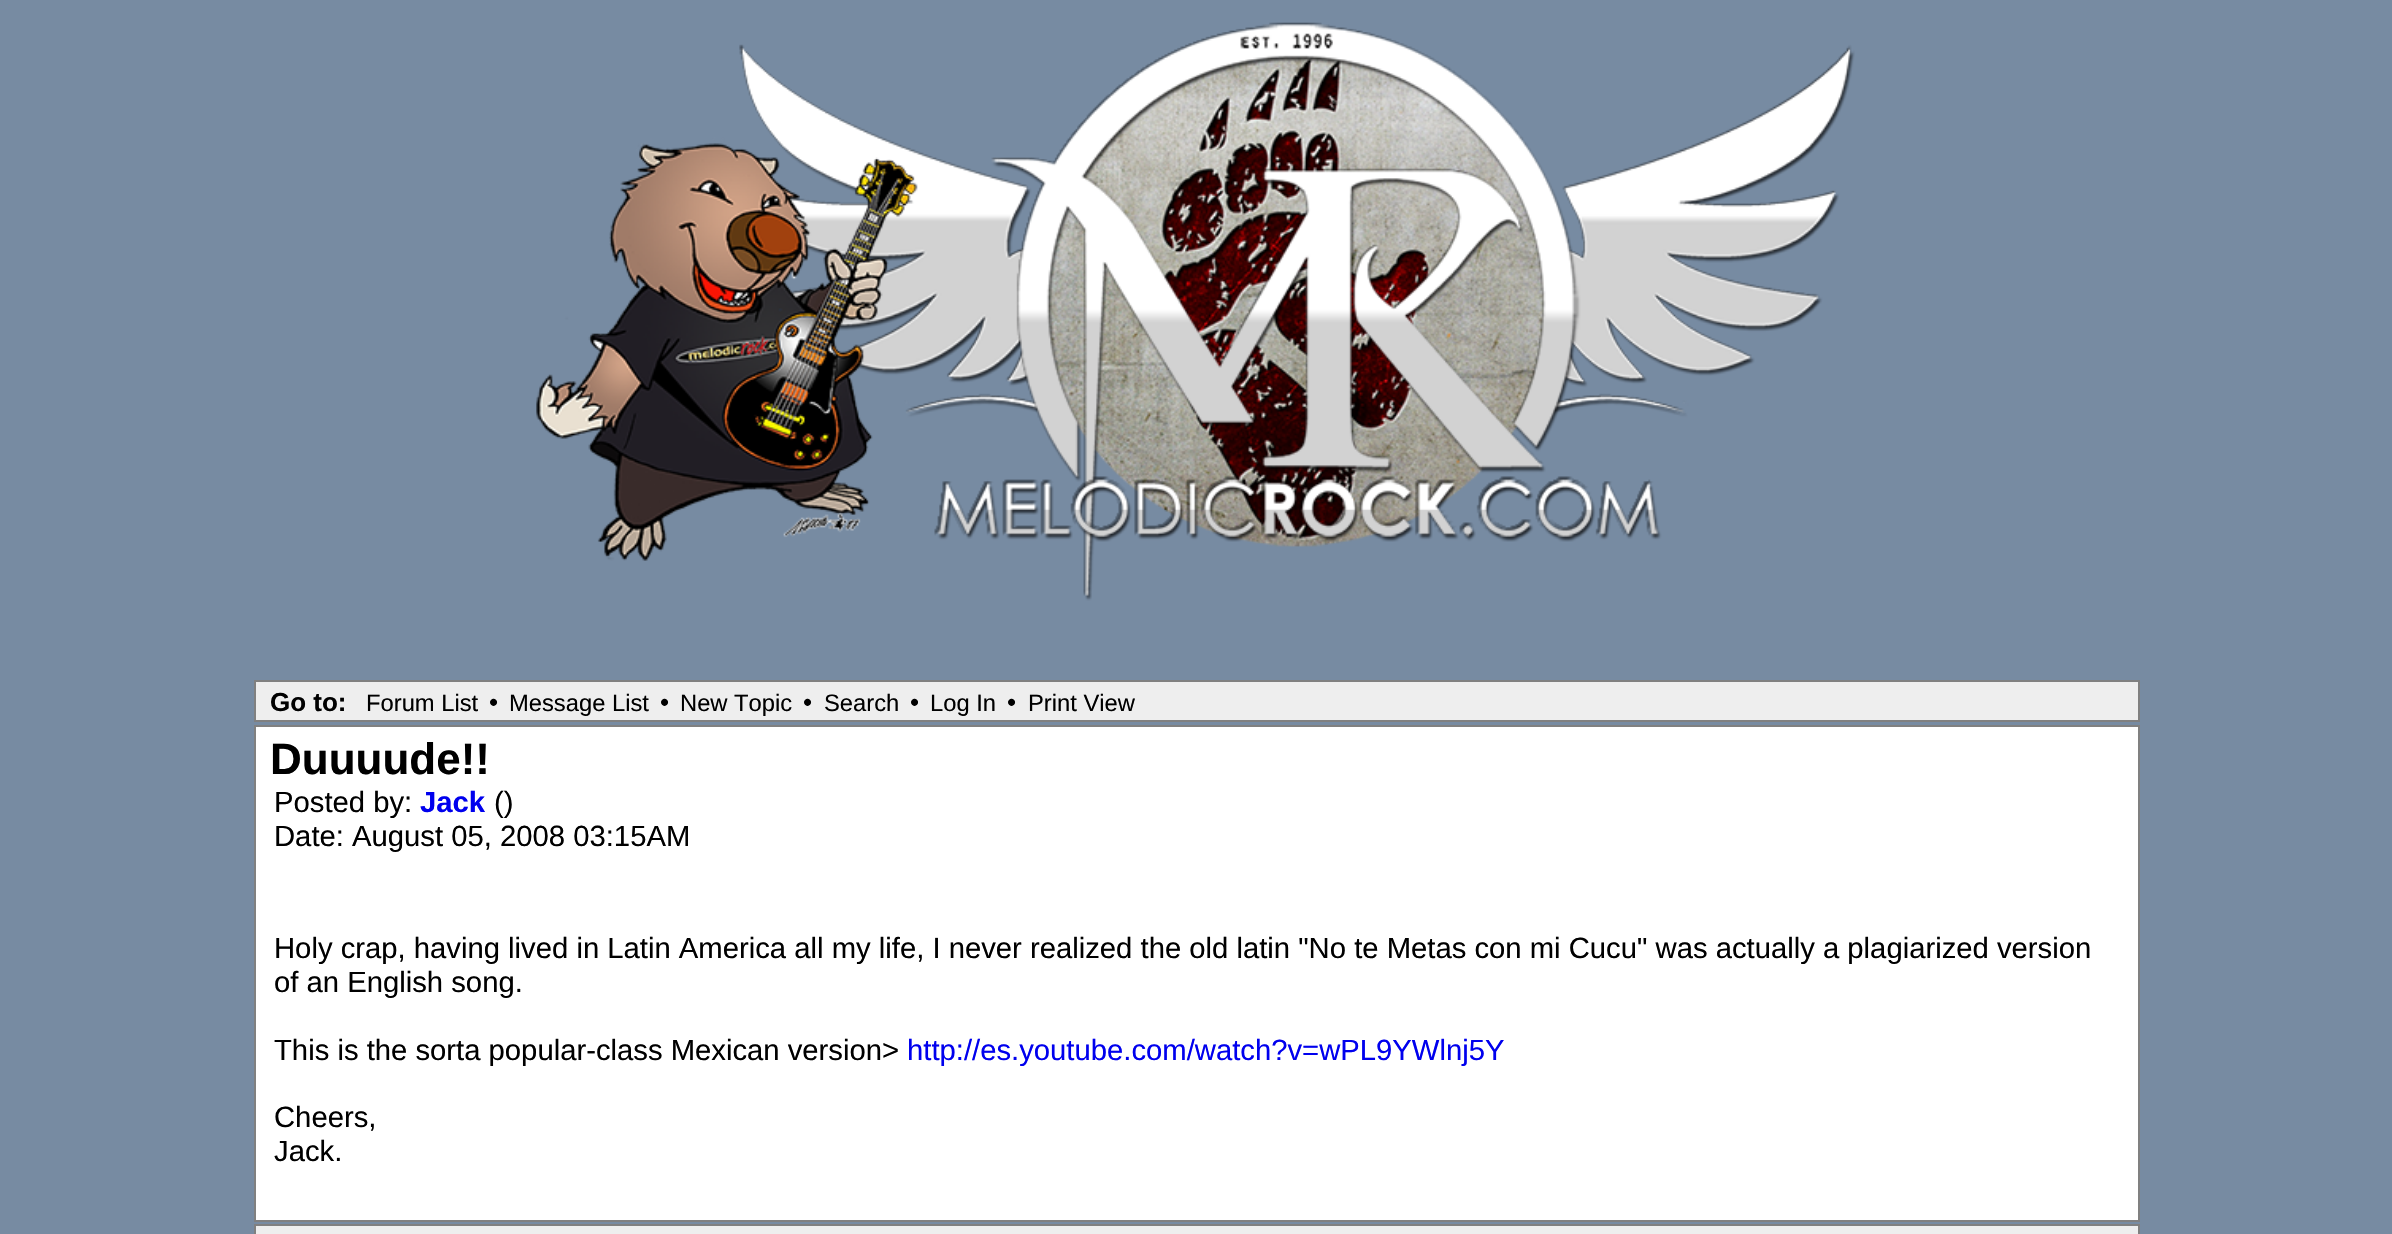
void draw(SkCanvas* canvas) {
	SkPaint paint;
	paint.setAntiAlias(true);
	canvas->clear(0xff778ba2);
	canvas->drawImageRect(SkImages::DeferredFromEncodedData(SkData::MakeFromFileName("img1.png")), SkRect::MakeXYWH(536, 22, 1319, 579), SkSamplingOptions());
	paint.setColor(0xffeeeeee);
	canvas->drawRect(SkRect::MakeXYWH(255, 681, 1884, 40), paint);
	paint.setStroke(true);
	paint.setStrokeWidth(2);
	paint.setColor(0xff808080);
	canvas->drawRect(SkRect::MakeXYWH(255, 681, 1884, 40), paint);
	SkFont f1(fontMgr->matchFamilyStyle("Liberation Sans", SkFontStyle::Bold()), 26);
	f1.setSubpixel(true);
	paint.setStroke(false);
	paint.setColor(0xff000000);
	canvas->drawString("Go to:", 270, 711, f1, paint);
	SkFont f2(fontMgr->matchFamilyStyle("Liberation Sans", SkFontStyle::Normal()), 23.75);
	f2.setSubpixel(true);
	canvas->drawString("Forum List", 366, 711, f2, paint);
	SkFont f3(fontMgr->matchFamilyStyle("Liberation Sans", SkFontStyle::Normal()), 26);
	f3.setSubpixel(true);
	canvas->drawString("•", 489, 711, f3, paint);
	canvas->drawString("Message List", 509, 711, f2, paint);
	canvas->drawString("•", 660, 711, f3, paint);
	canvas->drawString("New Topic", 680, 711, f2, paint);
	canvas->drawString("•", 803, 711, f3, paint);
	canvas->drawString("Search", 824, 711, f2, paint);
	canvas->drawString("•", 910, 711, f3, paint);
	paint.setStroke(true);
	paint.setColor(0xffeeeeee);
	canvas->drawRect(SkRect::MakeXYWH(919, 687, 88, 30), paint);
	paint.setStroke(false);
	paint.setColor(0xff000000);
	canvas->drawString("Log In", 930, 711, f2, paint);
	canvas->drawString("•", 1007, 711, f3, paint);
	canvas->drawString("Print View", 1028, 711, f2, paint);
	paint.setColor(0xffffffff);
	canvas->drawRect(SkRect::MakeXYWH(255, 726, 1884, 495), paint);
	paint.setStroke(true);
	paint.setColor(0xff808080);
	canvas->drawRect(SkRect::MakeXYWH(255, 726, 1884, 495), paint);
	SkFont f4(fontMgr->matchFamilyStyle("Liberation Sans", SkFontStyle::Bold()), 44);
	f4.setSubpixel(true);
	paint.setStroke(false);
	paint.setColor(0xff000000);
	canvas->drawString("Duuuude!!", 270, 774, f4, paint);
	SkFont f5(fontMgr->matchFamilyStyle("Liberation Sans", SkFontStyle::Normal()), 29.25);
	f5.setSubpixel(true);
	canvas->drawString("Posted by:", 274, 812, f5, paint);
	SkFont f6(fontMgr->matchFamilyStyle("Liberation Sans", SkFontStyle::Bold()), 29.25);
	f6.setSubpixel(true);
	paint.setColor(0xff0000ee);
	canvas->drawString("Jack", 420, 812, f6, paint);
	paint.setColor(0xff000000);
	canvas->drawString("()", 494, 812, f5, paint);
	canvas->drawString("Date: August 05, 2008 03:15AM", 274, 846, f5, paint);
	canvas->drawString("Holy crap, having lived in Latin America all my life, I never realized the old latin \"No te Metas con mi Cucu\" was actually a plagiarized version", 274, 958, f5, paint);
	canvas->drawString("of an English song.", 274, 992, f5, paint);
	canvas->drawString("This is the sorta popular-class Mexican version>", 274, 1060, f5, paint);
	paint.setColor(0xff0000ee);
	canvas->drawString("http://es.youtube.com/watch?v=wPL9YWlnj5Y", 907, 1060, f5, paint);
	paint.setColor(0xff000000);
	canvas->drawString("Cheers,", 274, 1127, f5, paint);
	canvas->drawString("Jack.", 274, 1161, f5, paint);
	paint.setColor(0xffeeeeee);
	canvas->drawRect(SkRect::MakeXYWH(255, 1225, 1884, 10), paint);
	paint.setStroke(true);
	paint.setColor(0xff808080);
	canvas->drawRect(SkRect::MakeXYWH(255, 1225, 1884, 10), paint);
}
